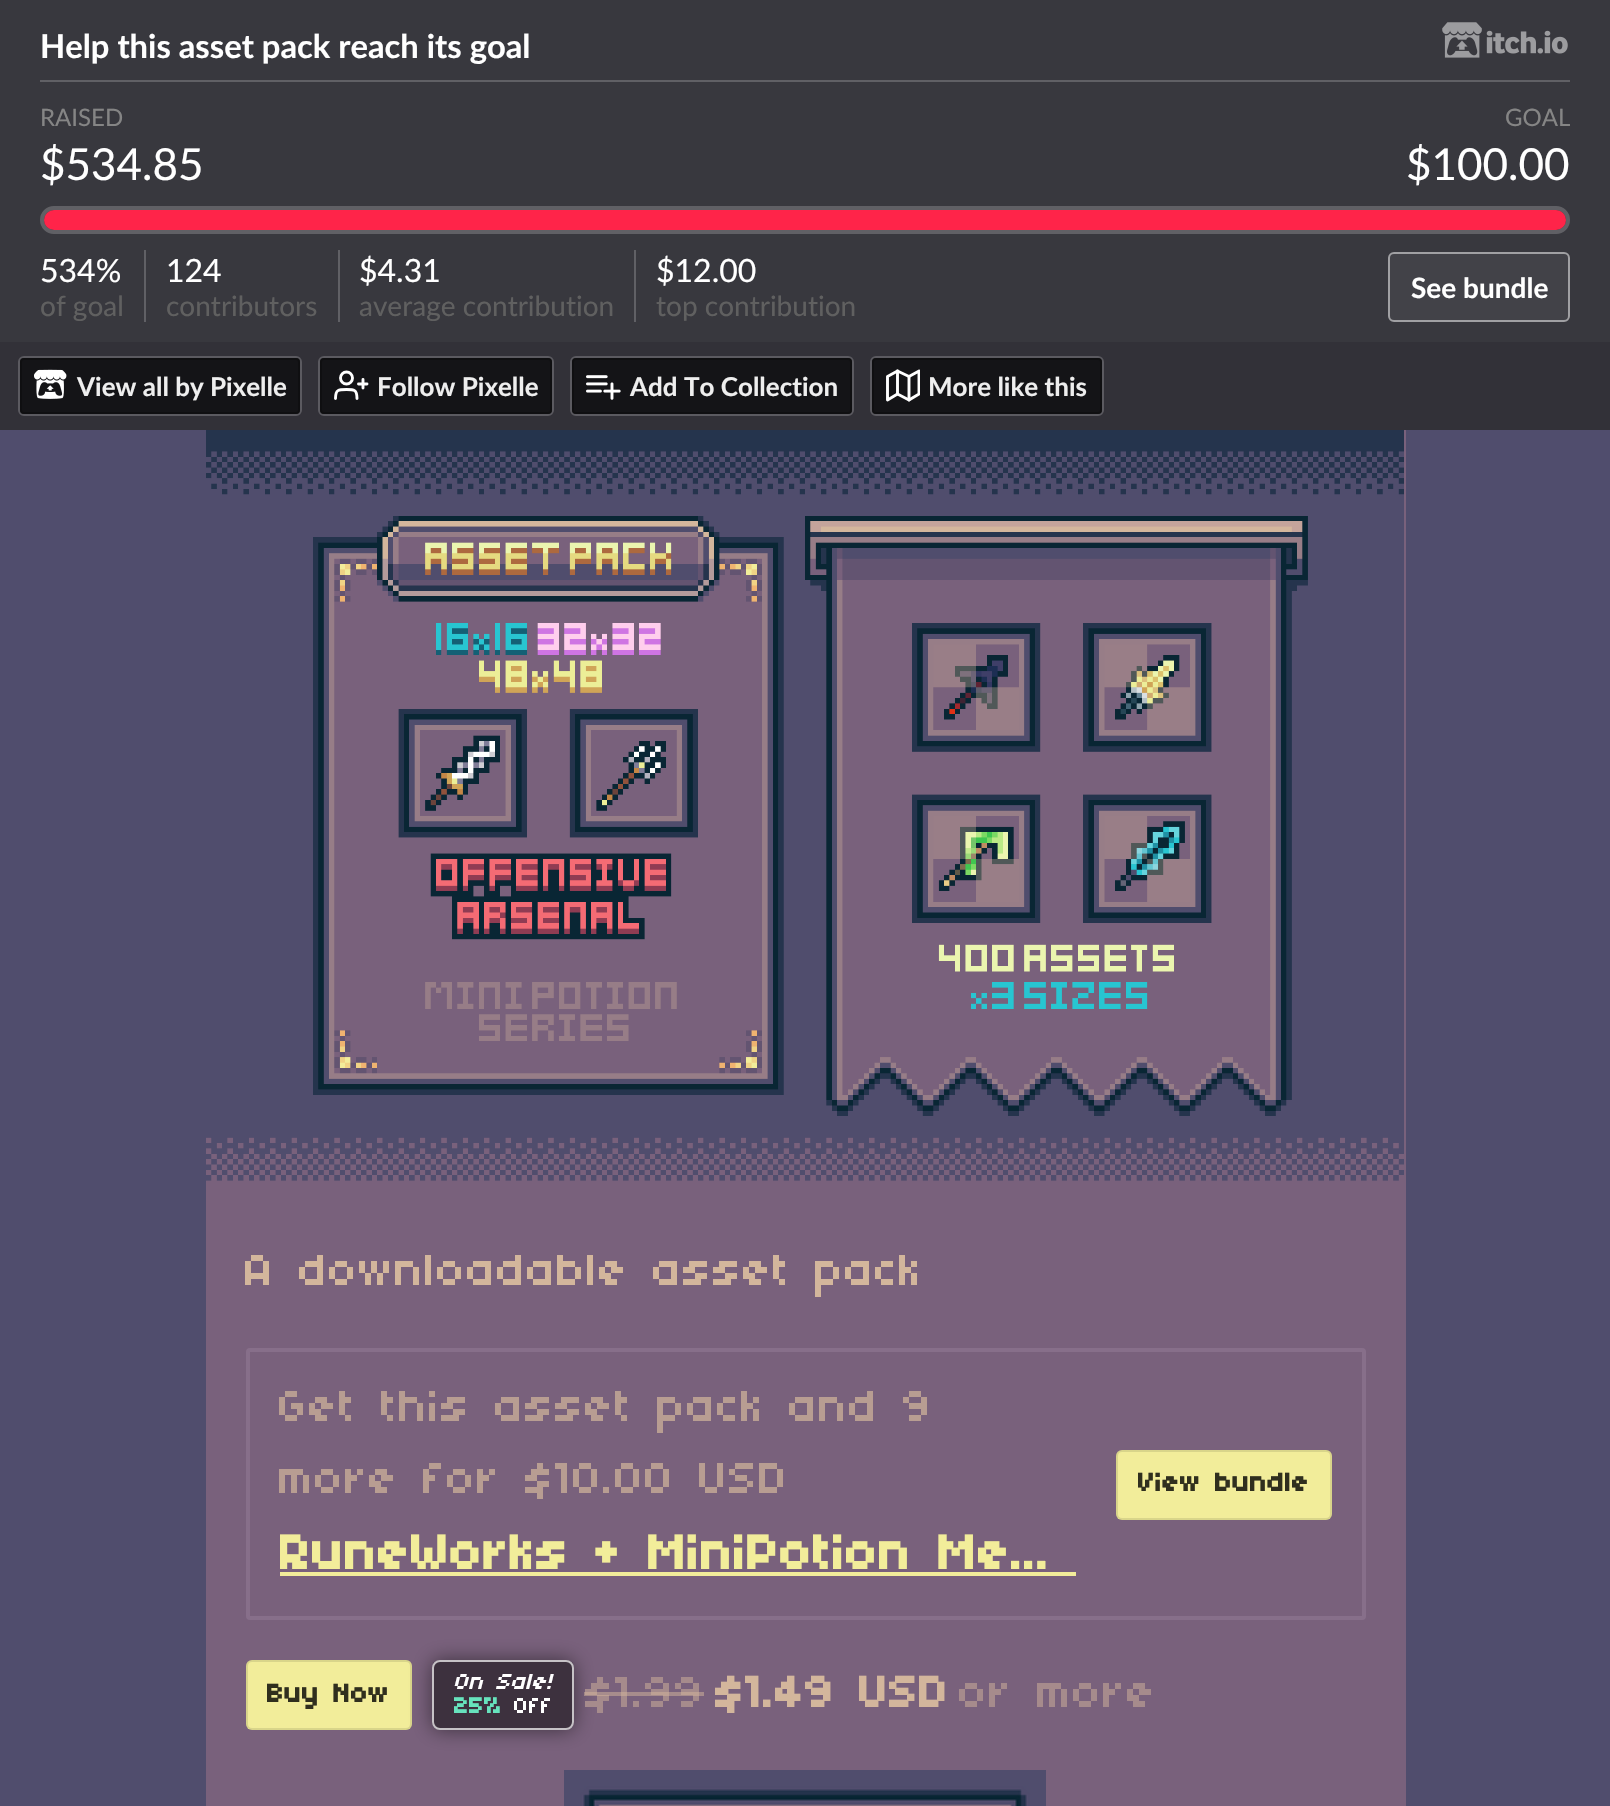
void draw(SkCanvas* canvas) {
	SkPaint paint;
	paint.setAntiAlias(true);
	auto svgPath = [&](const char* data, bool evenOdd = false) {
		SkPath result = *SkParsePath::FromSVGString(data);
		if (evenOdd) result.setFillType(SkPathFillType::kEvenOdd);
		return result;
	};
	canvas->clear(0xff504d6d);
	paint.setColor(0xff38383e);
	canvas->drawRect(SkRect::MakeXYWH(0, 0, 1610, 342), paint);
	paint.setColor(0xff606065);
	canvas->drawRect(SkRect::MakeXYWH(40, 80, 1530, 2), paint);
	SkFont f1(fontMgr->matchFamilyStyle("Lato", SkFontStyle::Bold()), 32.75);
	f1.setSubpixel(true);
	paint.setColor(0xffffffff);
	canvas->drawString("Help this asset pack reach its goal", 40, 58, f1, paint);
	canvas->drawImageRect(SkImages::DeferredFromEncodedData(SkData::MakeFromFileName("img1.png")), SkRect::MakeXYWH(1442, 22, 126, 36), SkSamplingOptions());
	SkFont f2(fontMgr->matchFamilyStyle("Lato", SkFontStyle::Normal()), 24);
	f2.setSubpixel(true);
	paint.setColor(0xff858585);
	canvas->drawString("RAISED", 40, 126, f2, paint);
	SkFont f3(fontMgr->matchFamilyStyle("Lato", SkFontStyle::Normal()), 44);
	f3.setSubpixel(true);
	paint.setColor(0xffffffff);
	canvas->drawString("$534.85", 40, 180, f3, paint);
	paint.setColor(0xff858585);
	canvas->drawString("GOAL", 1505, 126, f2, paint);
	paint.setColor(0xffffffff);
	canvas->drawString("$100.00", 1406, 180, f3, paint);
	paint.setStroke(true);
	paint.setStrokeWidth(4);
	paint.setColor(0xff606065);
	canvas->drawRoundRect(SkRect::MakeXYWH(42, 208, 1526, 24), 12, 12, paint);
	paint.setStroke(false);
	paint.setColor(0xffff2449);
	canvas->drawRoundRect(SkRect::MakeXYWH(44, 210, 1522, 20), 10, 10, paint);
	paint.setColor(0xff606065);
	canvas->drawRect(SkRect::MakeXYWH(144, 250, 2, 72), paint);
	SkFont f4(fontMgr->matchFamilyStyle("Lato", SkFontStyle::Normal()), 32);
	f4.setSubpixel(true);
	paint.setColor(0xffffffff);
	canvas->drawString("534%", 40, 282, f4, paint);
	SkFont f5(fontMgr->matchFamilyStyle("Lato", SkFontStyle::Normal()), 28);
	f5.setSubpixel(true);
	paint.setColor(0xff606060);
	canvas->drawString("of goal", 40, 316, f5, paint);
	paint.setColor(0xff606065);
	canvas->drawRect(SkRect::MakeXYWH(338, 250, 2, 72), paint);
	paint.setColor(0xffffffff);
	canvas->drawString("124", 166, 282, f4, paint);
	paint.setColor(0xff606060);
	canvas->drawString("contributors", 166, 316, f5, paint);
	paint.setColor(0xff606065);
	canvas->drawRect(SkRect::MakeXYWH(634, 250, 2, 72), paint);
	paint.setColor(0xffffffff);
	canvas->drawString("$4.31", 359, 282, f4, paint);
	paint.setColor(0xff606060);
	canvas->drawString("average contribution", 359, 316, f5, paint);
	paint.setColor(0xffffffff);
	canvas->drawString("$12.00", 656, 282, f4, paint);
	paint.setColor(0xff606060);
	canvas->drawString("top contribution", 656, 316, f5, paint);
	paint.setColor(0xff424248);
	canvas->drawRoundRect(SkRect::MakeXYWH(1389, 253, 180, 68), 5, 5, paint);
	paint.setStroke(true);
	paint.setStrokeWidth(2);
	paint.setColor(0xffa0a0a3);
	canvas->drawRoundRect(SkRect::MakeXYWH(1389, 253, 180, 68), 5, 5, paint);
	SkFont f6(fontMgr->matchFamilyStyle("Lato", SkFontStyle::Bold()), 28);
	f6.setSubpixel(true);
	paint.setStroke(false);
	paint.setColor(0xffffffff);
	canvas->drawString("See bundle", 1411, 298, f6, paint);
	paint.setColor(0xff323138);
	canvas->drawRect(SkRect::MakeXYWH(0, 342, 1610, 88), paint);
	paint.setStroke(true);
	paint.setColor(0xff5b5a60);
	canvas->drawRoundRect(SkRect::MakeXYWH(19, 357, 282, 58), 5, 5, paint);
	paint.setStroke(false);
	paint.setColor(0x99000000);
	canvas->drawRoundRect(SkRect::MakeXYWH(20, 358, 280, 56), 4, 4, paint);
	paint.setStroke(true);
	paint.setColor(0x800a0a0a);
	canvas->drawRoundRect(SkRect::MakeXYWH(21, 359, 278, 54), 3, 3, paint);
	canvas->drawImageRect(SkImages::DeferredFromEncodedData(SkData::MakeFromFileName("img2.png")), SkRect::MakeXYWH(34, 369, 33, 30), SkSamplingOptions());
	SkFont f7(fontMgr->matchFamilyStyle("Lato", SkFontStyle::Bold()), 26);
	f7.setSubpixel(true);
	paint.setStroke(false);
	paint.setColor(0xffeeeeee);
	canvas->drawString("View all by Pixelle", 77, 396, f7, paint);
	paint.setStroke(true);
	paint.setColor(0xff5b5a60);
	canvas->drawRoundRect(SkRect::MakeXYWH(319, 357, 234, 58), 5, 5, paint);
	paint.setStroke(false);
	paint.setColor(0x99000000);
	canvas->drawRoundRect(SkRect::MakeXYWH(320, 358, 232, 56), 4, 4, paint);
	paint.setStroke(true);
	paint.setColor(0x800a0a0a);
	canvas->drawRoundRect(SkRect::MakeXYWH(321, 359, 230, 54), 3, 3, paint);
	paint.setStrokeWidth(2.9);
	paint.setStrokeCap(SkPaint::kRound_Cap);
	paint.setStrokeJoin(SkPaint::kRound_Join);
	paint.setColor(0xffffffff);
	canvas->drawPath(svgPath("M357 398.5C357 389.5 354 389.5 346.5 389.5C338.5 389.5 335.5 389.5 335.5 398.5"), paint);
	paint.setStrokeCap(SkPaint::kButt_Cap);
	paint.setStrokeJoin(SkPaint::kMiter_Join);
	canvas->drawCircle(346.5, 378, 6, paint);
	paint.setStrokeCap(SkPaint::kRound_Cap);
	paint.setStrokeJoin(SkPaint::kRound_Join);
	canvas->drawPath(svgPath("M363 379.5V388M367 384H358.5"), paint);
	paint.setStroke(false);
	paint.setColor(0xffeeeeee);
	canvas->drawString("Follow Pixelle", 377, 396, f7, paint);
	paint.setStroke(true);
	paint.setStrokeWidth(2);
	paint.setStrokeCap(SkPaint::kButt_Cap);
	paint.setStrokeJoin(SkPaint::kMiter_Join);
	paint.setColor(0xff5b5a60);
	canvas->drawRoundRect(SkRect::MakeXYWH(571, 357, 282, 58), 5, 5, paint);
	paint.setStroke(false);
	paint.setColor(0x99000000);
	canvas->drawRoundRect(SkRect::MakeXYWH(572, 358, 280, 56), 4, 4, paint);
	paint.setStroke(true);
	paint.setColor(0x800a0a0a);
	canvas->drawRoundRect(SkRect::MakeXYWH(573, 359, 278, 54), 3, 3, paint);
	canvas->drawImageRect(SkImages::DeferredFromEncodedData(SkData::MakeFromFileName("img3.png")), SkRect::MakeXYWH(586, 375, 35, 25), SkSamplingOptions());
	paint.setStroke(false);
	paint.setColor(0xffeeeeee);
	canvas->drawString("Add To Collection", 630, 396, f7, paint);
	paint.setStroke(true);
	paint.setColor(0xff5b5a60);
	canvas->drawRoundRect(SkRect::MakeXYWH(871, 357, 232, 58), 5, 5, paint);
	paint.setStroke(false);
	paint.setColor(0x99000000);
	canvas->drawRoundRect(SkRect::MakeXYWH(872, 358, 230, 56), 4, 4, paint);
	paint.setStroke(true);
	paint.setColor(0x800a0a0a);
	canvas->drawRoundRect(SkRect::MakeXYWH(873, 359, 228, 54), 3, 3, paint);
	canvas->save();
	canvas->clipRect(SkRect::MakeXYWH(886, 368, 34, 36));
	paint.setStrokeWidth(2.9);
	paint.setStrokeCap(SkPaint::kRound_Cap);
	paint.setStrokeJoin(SkPaint::kRound_Join);
	paint.setColor(0xffffffff);
	canvas->drawPath(svgPath("M887.5 376.5V400L897.5 394L909 400L919 394V371L909 376.5L897.5 371Z"), paint);
	canvas->restore();
	canvas->drawPath(svgPath("M897.5 371V394M909 376.5V400"), paint);
	paint.setStroke(false);
	paint.setColor(0xffeeeeee);
	canvas->drawString("More like this", 928, 396, f7, paint);
	paint.setColor(0xff79617c);
	canvas->drawRect(SkRect::MakeXYWH(206, 430, 1200, 1376), paint);
	canvas->drawImageRect(SkImages::DeferredFromEncodedData(SkData::MakeFromFileName("img4.png")), SkRect::MakeXYWH(206, 430, 1198, 751), SkSamplingOptions());
	SkFont f8(fontMgr->matchFamilyStyle("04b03", SkFontStyle::Normal()), 48);
	f8.setSubpixel(true);
	paint.setColor(0xffd3b69c);
	canvas->drawString("A downloadable asset pack", 245, 1285, f8, paint);
	paint.setStroke(true);
	paint.setStrokeWidth(4);
	paint.setStrokeCap(SkPaint::kButt_Cap);
	paint.setStrokeJoin(SkPaint::kMiter_Join);
	paint.setColor(0xff876f8a);
	canvas->drawRoundRect(SkRect::MakeXYWH(248, 1350, 1116, 268), 2, 2, paint);
	paint.setStroke(false);
	paint.setColor(0xffb89d92);
	canvas->drawString("Get this asset pack and 9", 279, 1421, f8, paint);
	canvas->drawString("more for $10.00 USD", 279, 1493, f8, paint);
	canvas->save();
	canvas->clipRect(SkRect::MakeXYWH(280, 1516, 796, 80));
	SkFont f9(fontMgr->matchFamilyStyle("04b03", SkFontStyle::Bold()), 52.75);
	f9.setSubpixel(true);
	paint.setColor(0xfff2ed9a);
	canvas->drawString("RuneWorks + MiniPotion Me...", 279, 1569, f9, paint);
	canvas->restore();
	canvas->drawRect(SkRect::MakeXYWH(280, 1572, 796, 4), paint);
	canvas->drawRoundRect(SkRect::MakeXYWH(1116, 1450, 216, 70), 6, 6, paint);
	paint.setStroke(true);
	paint.setStrokeWidth(2);
	paint.setColor(0x1a000000);
	canvas->drawRoundRect(SkRect::MakeXYWH(1117, 1451, 214, 68), 5, 5, paint);
	SkFont f10(fontMgr->matchFamilyStyle("04b03", SkFontStyle::Bold()), 28);
	f10.setSubpixel(true);
	paint.setStroke(false);
	paint.setColor(0xff302f1e);
	canvas->drawString("View bundle", 1138, 1491, f10, paint);
	paint.setColor(0xfff2ed9a);
	canvas->drawRoundRect(SkRect::MakeXYWH(246, 1660, 166, 70), 6, 6, paint);
	paint.setStroke(true);
	paint.setColor(0x1a000000);
	canvas->drawRoundRect(SkRect::MakeXYWH(247, 1661, 164, 68), 5, 5, paint);
	paint.setStroke(false);
	paint.setColor(0xff302f1e);
	canvas->drawString("Buy Now", 267, 1702, f10, paint);
	canvas->save();
	canvas->clipPath(svgPath("M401 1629H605V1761H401ZM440 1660H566C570.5 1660 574 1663.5 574 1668V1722C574 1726.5 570.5 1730 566 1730H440C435.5 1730 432 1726.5 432 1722V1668C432 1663.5 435.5 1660 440 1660Z", true), true);
	paint.setColor(0x80000000);
	paint.setMaskFilter(SkMaskFilter::MakeBlur(kNormal_SkBlurStyle, 10));
	canvas->drawRoundRect(SkRect::MakeXYWH(432, 1660, 142, 70), 8, 8, paint);
	paint.setMaskFilter(nullptr);
	canvas->restore();
	canvas->drawRoundRect(SkRect::MakeXYWH(432, 1660, 142, 70), 8, 8, paint);
	paint.setStroke(true);
	paint.setColor(0xb3ffffff);
	canvas->drawRoundRect(SkRect::MakeXYWH(433, 1661, 140, 68), 7, 7, paint);
	SkFont f11(fontMgr->matchFamilyStyle("04b03", SkFontStyle::Italic()), 24);
	f11.setSubpixel(true);
	paint.setStroke(false);
	paint.setColor(0xffffffff);
	canvas->drawString("On Sale!", 454, 1689, f11, paint);
	SkFont f12(fontMgr->matchFamilyStyle("04b03", SkFontStyle::Bold()), 24);
	f12.setSubpixel(true);
	paint.setColor(0xff67e3bd);
	canvas->drawString("25%", 454, 1713, f12, paint);
	SkFont f13(fontMgr->matchFamilyStyle("04b03", SkFontStyle::Normal()), 24);
	f13.setSubpixel(true);
	paint.setColor(0xffffffff);
	canvas->drawString("Off", 514, 1713, f13, paint);
	paint.setColor(0xffa68b8c);
	canvas->drawString("$1.99", 585, 1707, f8, paint);
	paint.setColor(0x80d3b69c);
	canvas->drawRect(SkRect::MakeXYWH(584, 1692, 120, 4), paint);
	SkFont f14(fontMgr->matchFamilyStyle("04b03", SkFontStyle::Bold()), 48);
	f14.setSubpixel(true);
	paint.setColor(0xffd3b69c);
	canvas->drawString("$1.49 USD", 715, 1707, f14, paint);
	paint.setColor(0xffa68b8c);
	canvas->drawString("or more", 959, 1707, f8, paint);
	canvas->drawImageRect(SkImages::DeferredFromEncodedData(SkData::MakeFromFileName("img5.png")), SkRect::MakeXYWH(564, 1770, 482, 36), SkSamplingOptions());
}
